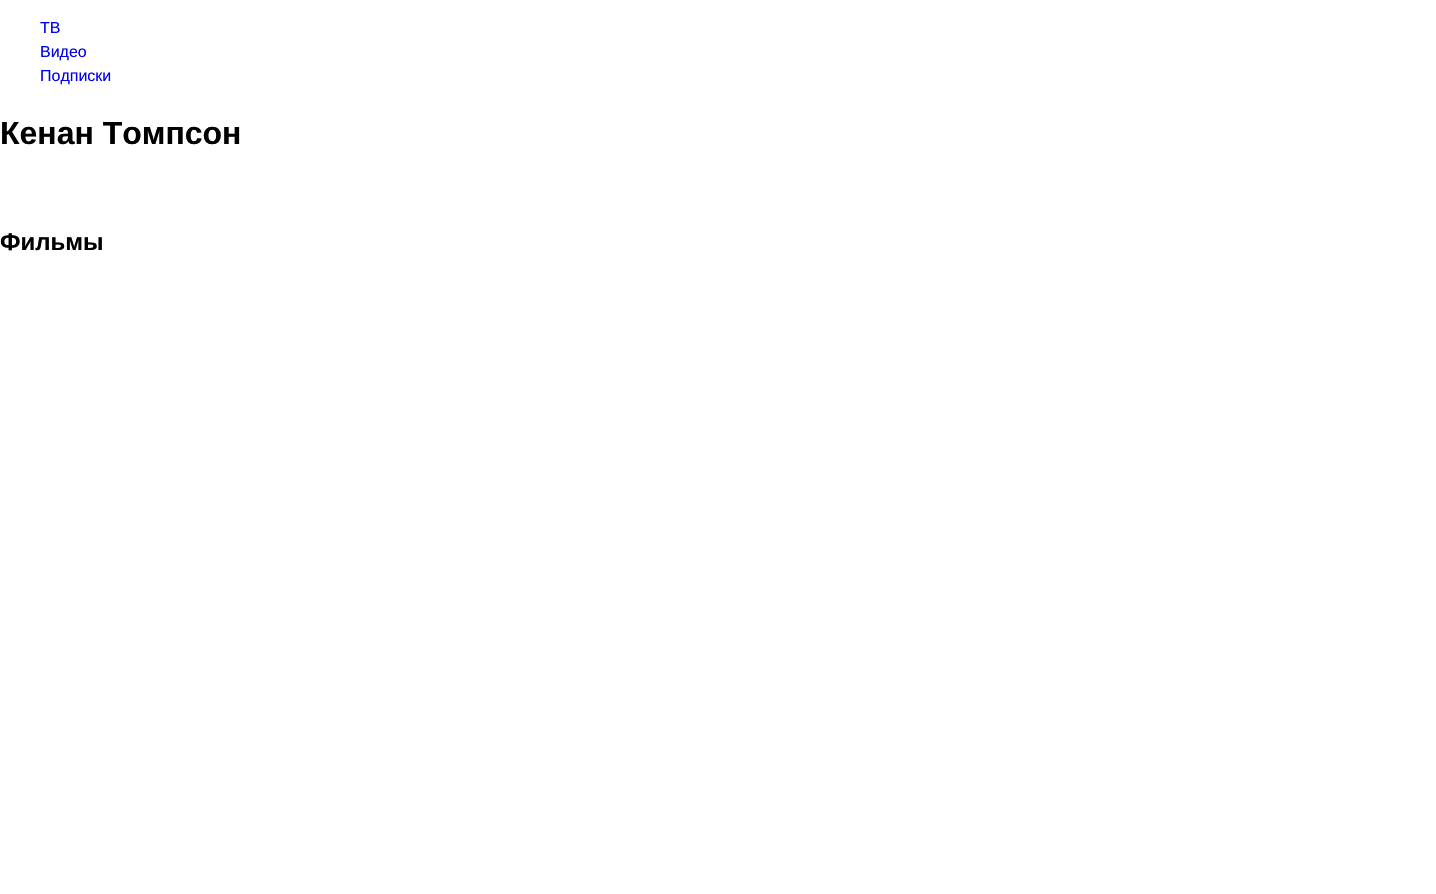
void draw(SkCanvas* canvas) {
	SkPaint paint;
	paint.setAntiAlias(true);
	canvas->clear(0xffffffff);
	SkFont f1(fontMgr->matchFamilyStyle("Liberation Sans", SkFontStyle::Normal()), 16);
	f1.setSubpixel(true);
	paint.setColor(0xff0000ee);
	canvas->drawString("ТВ", 40, 33, f1, paint);
	canvas->drawString("Видео", 40, 57, f1, paint);
	canvas->drawString("Подписки", 40, 81, f1, paint);
	SkFont f2(fontMgr->matchFamilyStyle("Liberation Sans", SkFontStyle::Bold()), 32);
	f2.setSubpixel(true);
	paint.setColor(0xff000000);
	canvas->drawString("Кенан Томпсон", 0, 144, f2, paint);
	SkFont f3(fontMgr->matchFamilyStyle("Liberation Sans", SkFontStyle::Bold()), 24);
	f3.setSubpixel(true);
	canvas->drawString("Фильмы", 0, 250, f3, paint);
}
